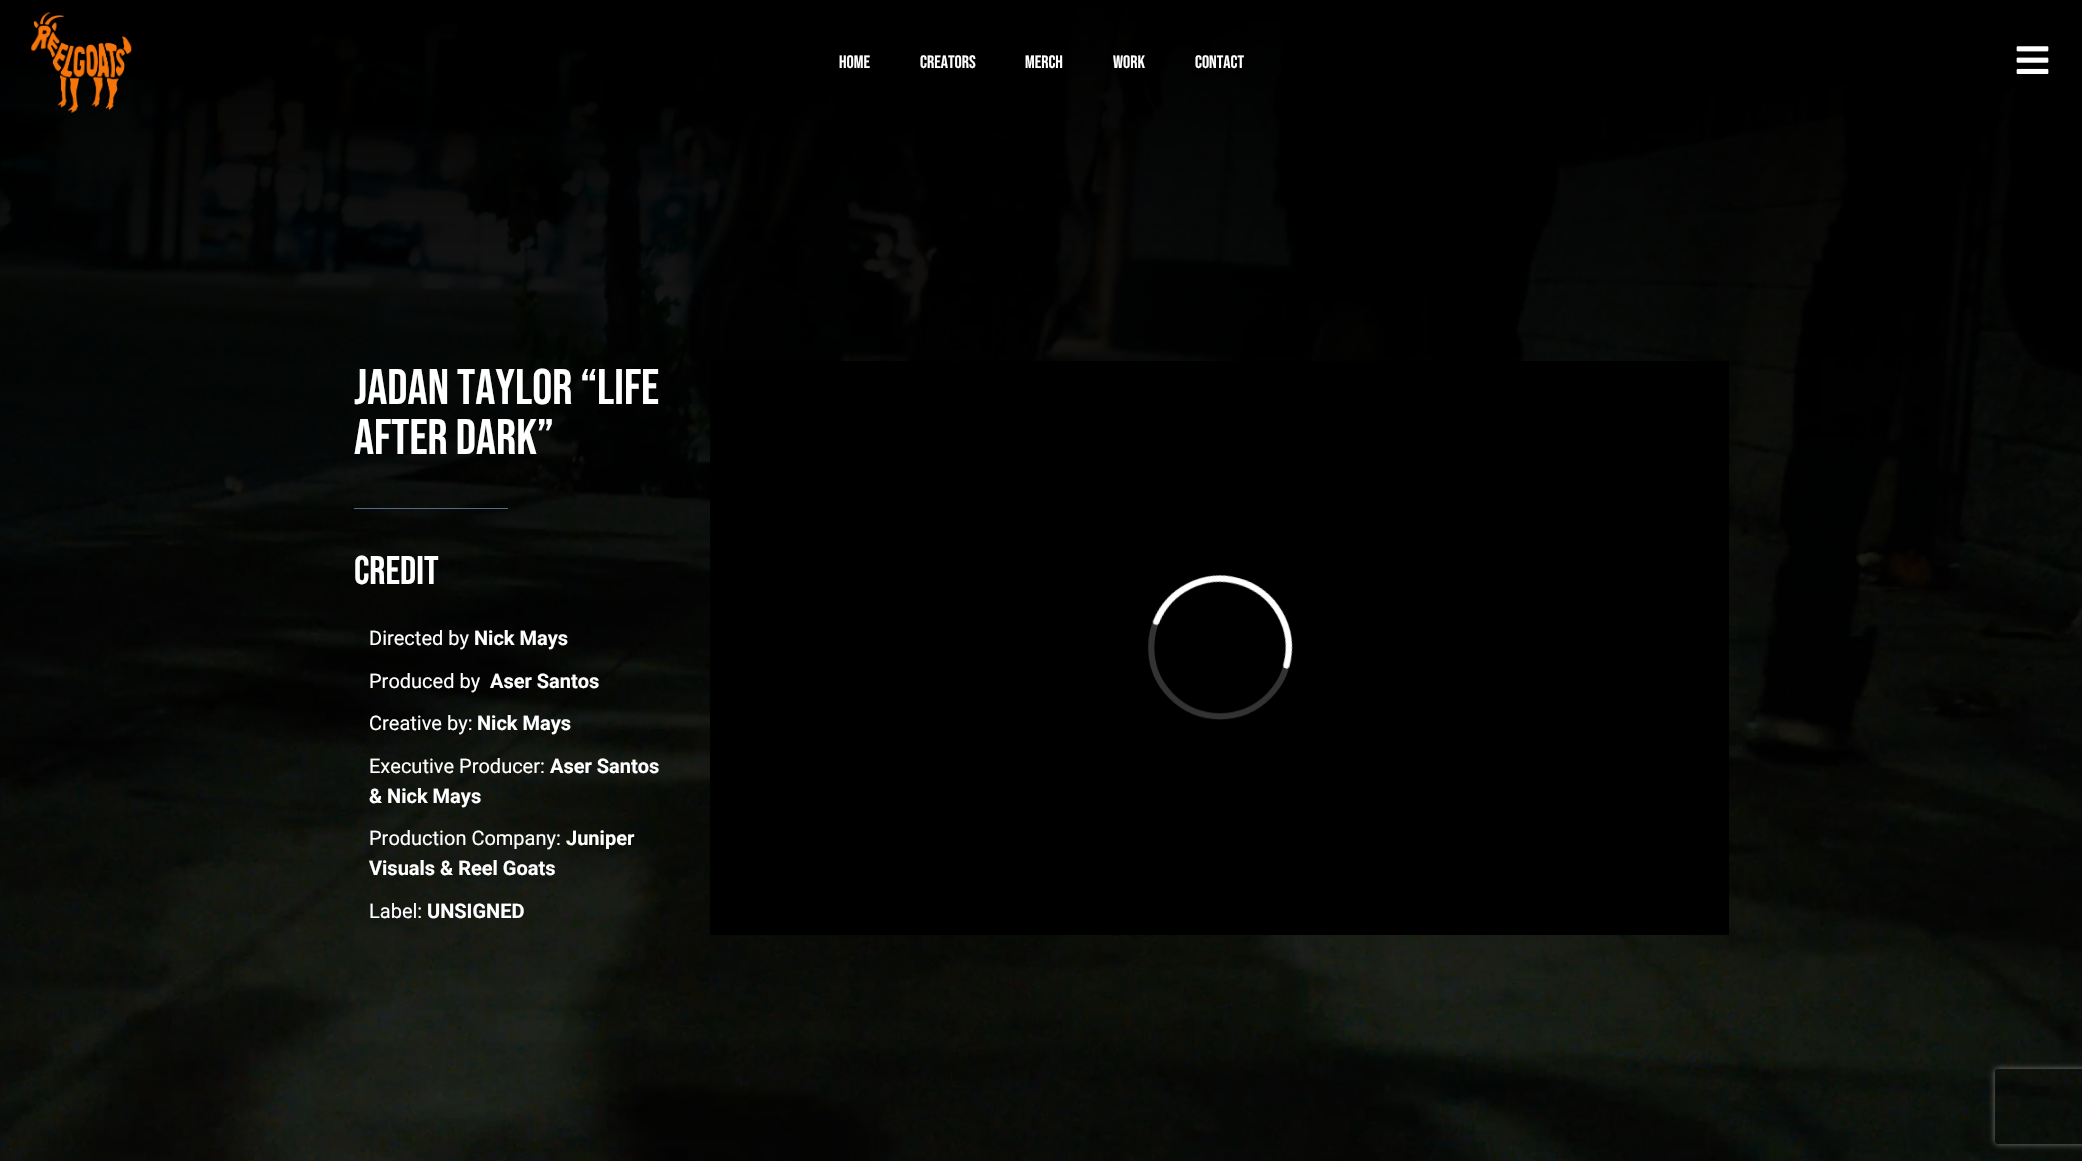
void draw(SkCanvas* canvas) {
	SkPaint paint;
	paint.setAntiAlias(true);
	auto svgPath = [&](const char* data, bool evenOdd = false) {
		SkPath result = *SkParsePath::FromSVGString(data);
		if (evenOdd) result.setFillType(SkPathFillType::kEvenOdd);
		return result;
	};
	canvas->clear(0xffffffff);
	canvas->drawImageRect(SkImages::DeferredFromEncodedData(SkData::MakeFromFileName("img3.png")), SkRect::MakeXYWH(0, 0, 2082, 1161), SkSamplingOptions());
	canvas->drawImageRect(SkImages::DeferredFromEncodedData(SkData::MakeFromFileName("img1.png")), SkRect::MakeXYWH(31, 12, 101, 101), SkSamplingOptions());
	SkFont f1(fontMgr->matchFamilyStyle("Bebas Neue", SkFontStyle::Normal()), 18);
	f1.setSubpixel(true);
	paint.setColor(0xffffffff);
	canvas->drawString("Home", 839, 68, f1, paint);
	canvas->drawString("Creators", 920, 68, f1, paint);
	canvas->drawString("Merch", 1025, 68, f1, paint);
	canvas->drawString("Work", 1113, 68, f1, paint);
	canvas->drawString("Contact", 1195, 68, f1, paint);
	canvas->drawImageRect(SkImages::DeferredFromEncodedData(SkData::MakeFromFileName("img2.png")), SkRect::MakeXYWH(2016, 46, 33, 28), SkSamplingOptions());
	SkFont f2(fontMgr->matchFamilyStyle("Bebas Neue", SkFontStyle::Normal()), 50);
	f2.setSubpixel(true);
	canvas->drawString("JaDan Taylor “Life", 354, 404, f2, paint);
	canvas->drawString("After Dark”", 354, 454, f2, paint);
	paint.setColor(0xff556b87);
	canvas->drawRect(SkRect::MakeXYWH(354, 508, 154, 1), paint);
	SkFont f3(fontMgr->matchFamilyStyle("Bebas Neue", SkFontStyle::Normal()), 40);
	f3.setSubpixel(true);
	paint.setColor(0xffffffff);
	canvas->drawString("CREDIT", 354, 584, f3, paint);
	SkFont f4(fontMgr->matchFamilyStyle("Roboto", SkFontStyle::Normal()), 20);
	f4.setSubpixel(true);
	canvas->drawString("Directed by", 369, 645, f4, paint);
	SkFont f5(fontMgr->matchFamilyStyle("Roboto", SkFontStyle::Bold()), 20);
	f5.setSubpixel(true);
	canvas->drawString("Nick Mays", 474, 645, f5, paint);
	canvas->drawString("Produced by", 369, 688, f4, paint);
	canvas->drawString("Aser Santos", 490, 688, f5, paint);
	canvas->drawString("Creative by:", 369, 730, f4, paint);
	canvas->drawString("Nick Mays", 477, 730, f5, paint);
	canvas->drawString("Executive Producer:", 369, 773, f4, paint);
	canvas->drawString("Aser Santos", 550, 773, f5, paint);
	canvas->drawString("& Nick Mays", 369, 803, f5, paint);
	canvas->drawString("Production Company:", 369, 845, f4, paint);
	canvas->drawString("Juniper", 566, 845, f5, paint);
	canvas->drawString("Visuals & Reel Goats", 369, 875, f5, paint);
	canvas->drawString("Label:", 369, 918, f4, paint);
	canvas->drawString("UNSIGNED", 427, 918, f5, paint);
	paint.setColor(0xff000000);
	canvas->drawRect(SkRect::MakeXYWH(710, 361, 1019, 574), paint);
	canvas->drawImageRect(SkImages::DeferredFromEncodedData(SkData::MakeFromFileName("img4.png")), SkRect::MakeXYWH(1148, 574, 145, 146), SkSamplingOptions());
	canvas->save();
	canvas->clipPath(svgPath("M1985 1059H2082V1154H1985ZM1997.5 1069H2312.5C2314 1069 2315 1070 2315 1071.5V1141.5C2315 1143 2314 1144 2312.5 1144H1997.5C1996 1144 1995 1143 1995 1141.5V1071.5C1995 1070 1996 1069 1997.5 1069Z", true), true);
	paint.setColor(0xff808080);
	paint.setMaskFilter(SkMaskFilter::MakeBlur(kNormal_SkBlurStyle, 3));
	canvas->drawRoundRect(SkRect::MakeXYWH(1995, 1069, 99, 75), 2.5, 2.5, paint);
	paint.setMaskFilter(nullptr);
	canvas->restore();
}
